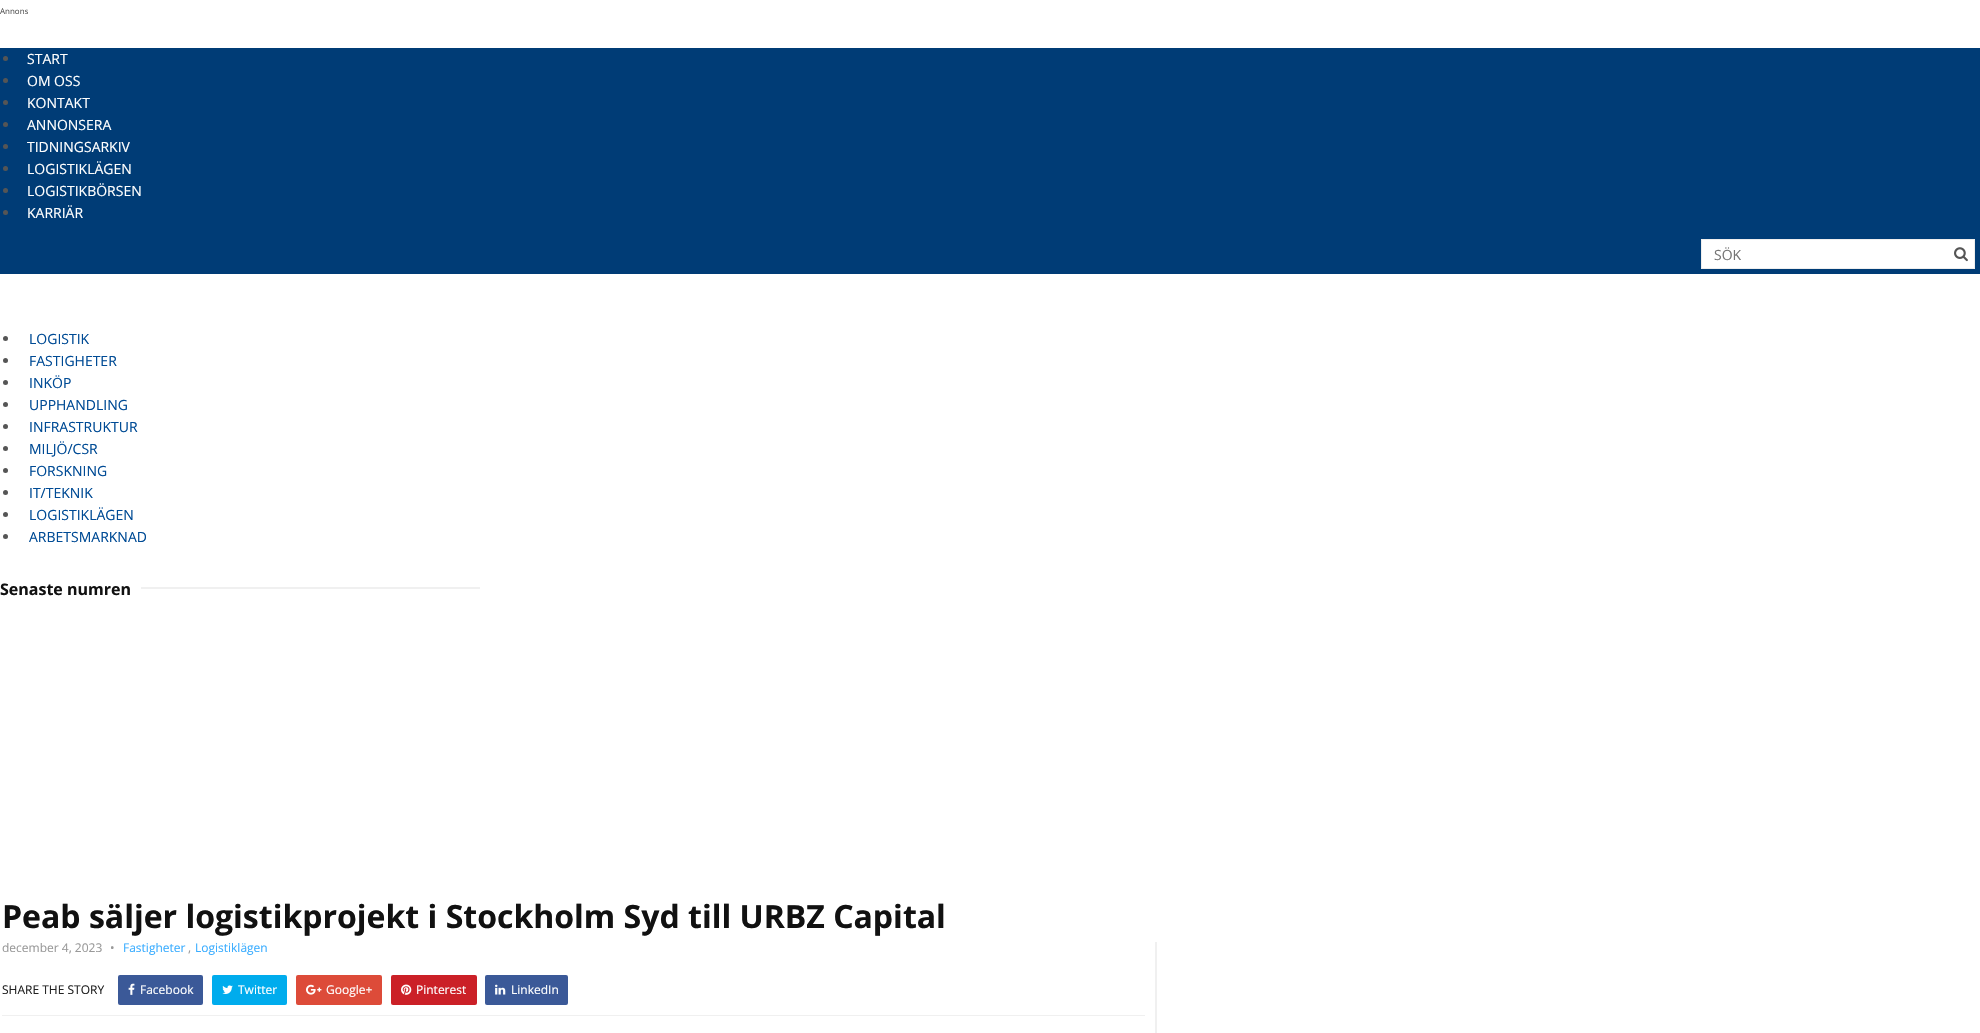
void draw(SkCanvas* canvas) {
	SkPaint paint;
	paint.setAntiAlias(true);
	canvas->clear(0xffffffff);
	SkFont f1(fontMgr->matchFamilyStyle("Open Sans", SkFontStyle::Normal()), 8);
	f1.setSubpixel(true);
	paint.setColor(0xff555555);
	canvas->drawString("Annons", 0, 14, f1, paint);
	paint.setColor(0xff003c76);
	canvas->drawRect(SkRect::MakeXYWH(0, 48, 1980, 226), paint);
	paint.setColor(0xff555555);
	canvas->drawCircle(5.5, 58.5, 2.5, paint);
	SkFont f2(fontMgr->matchFamilyStyle("Open Sans", SkFontStyle::Normal()), 14);
	f2.setSubpixel(true);
	paint.setColor(0xffffffff);
	canvas->drawString("START", 27, 64, f2, paint);
	paint.setColor(0xff555555);
	canvas->drawCircle(5.5, 80.5, 2.5, paint);
	paint.setColor(0xffffffff);
	canvas->drawString("OM OSS", 27, 86, f2, paint);
	paint.setColor(0xff555555);
	canvas->drawCircle(5.5, 102.5, 2.5, paint);
	paint.setColor(0xffffffff);
	canvas->drawString("KONTAKT", 27, 108, f2, paint);
	paint.setColor(0xff555555);
	canvas->drawCircle(5.5, 124.5, 2.5, paint);
	paint.setColor(0xffffffff);
	canvas->drawString("ANNONSERA", 27, 130, f2, paint);
	paint.setColor(0xff555555);
	canvas->drawCircle(5.5, 146.5, 2.5, paint);
	paint.setColor(0xffffffff);
	canvas->drawString("TIDNINGSARKIV", 27, 152, f2, paint);
	paint.setColor(0xff555555);
	canvas->drawCircle(5.5, 168.5, 2.5, paint);
	paint.setColor(0xffffffff);
	canvas->drawString("LOGISTIKLÄGEN", 27, 174, f2, paint);
	paint.setColor(0xff555555);
	canvas->drawCircle(5.5, 190.5, 2.5, paint);
	paint.setColor(0xffffffff);
	canvas->drawString("LOGISTIKBÖRSEN", 27, 196, f2, paint);
	paint.setColor(0xff555555);
	canvas->drawCircle(5.5, 212.5, 2.5, paint);
	paint.setColor(0xffffffff);
	canvas->drawString("KARRIÄR", 27, 218, f2, paint);
	canvas->drawRect(SkRect::MakeXYWH(1701.5, 239.5, 273, 29), paint);
	paint.setStroke(true);
	paint.setStrokeWidth(1);
	paint.setColor(0xffeeeeee);
	canvas->drawRect(SkRect::MakeXYWH(1701.5, 239.5, 273, 29), paint);
	paint.setStroke(false);
	paint.setColor(0xff757575);
	canvas->drawString("SÖK", 1714, 260, f2, paint);
	canvas->drawImageRect(SkImages::DeferredFromEncodedData(SkData::MakeFromFileName("img1.png")), SkRect::MakeXYWH(1954, 247, 14, 15), SkSamplingOptions());
	paint.setColor(0xff555555);
	canvas->drawCircle(5.5, 338.5, 2.5, paint);
	paint.setColor(0xff004b95);
	canvas->drawString("LOGISTIK", 29, 344, f2, paint);
	paint.setColor(0xff555555);
	canvas->drawCircle(5.5, 360.5, 2.5, paint);
	paint.setColor(0xff004b95);
	canvas->drawString("FASTIGHETER", 29, 366, f2, paint);
	paint.setColor(0xff555555);
	canvas->drawCircle(5.5, 382.5, 2.5, paint);
	paint.setColor(0xff004b95);
	canvas->drawString("INKÖP", 29, 388, f2, paint);
	paint.setColor(0xff555555);
	canvas->drawCircle(5.5, 404.5, 2.5, paint);
	paint.setColor(0xff004b95);
	canvas->drawString("UPPHANDLING", 29, 410, f2, paint);
	paint.setColor(0xff555555);
	canvas->drawCircle(5.5, 426.5, 2.5, paint);
	paint.setColor(0xff004b95);
	canvas->drawString("INFRASTRUKTUR", 29, 432, f2, paint);
	paint.setColor(0xff555555);
	canvas->drawCircle(5.5, 448.5, 2.5, paint);
	paint.setColor(0xff004b95);
	canvas->drawString("MILJÖ/CSR", 29, 454, f2, paint);
	paint.setColor(0xff555555);
	canvas->drawCircle(5.5, 470.5, 2.5, paint);
	paint.setColor(0xff004b95);
	canvas->drawString("FORSKNING", 29, 476, f2, paint);
	paint.setColor(0xff555555);
	canvas->drawCircle(5.5, 492.5, 2.5, paint);
	paint.setColor(0xff004b95);
	canvas->drawString("IT/TEKNIK", 29, 498, f2, paint);
	paint.setColor(0xff555555);
	canvas->drawCircle(5.5, 514.5, 2.5, paint);
	paint.setColor(0xff004b95);
	canvas->drawString("LOGISTIKLÄGEN", 29, 520, f2, paint);
	paint.setColor(0xff555555);
	canvas->drawCircle(5.5, 536.5, 2.5, paint);
	paint.setColor(0xff004b95);
	canvas->drawString("ARBETSMARKNAD", 29, 542, f2, paint);
	SkFont f3(fontMgr->matchFamilyStyle("Open Sans", SkFontStyle::Bold()), 16);
	f3.setSubpixel(true);
	paint.setColor(0xff111111);
	canvas->drawString("Senaste numren", 0, 595, f3, paint);
	paint.setColor(0xfff0f0f0);
	canvas->drawRect(SkRect::MakeXYWH(141, 587, 339, 2), paint);
	canvas->drawRect(SkRect::MakeXYWH(1155, 942, 2, 91), paint);
	SkFont f4(fontMgr->matchFamilyStyle("Open Sans", SkFontStyle::Bold()), 32);
	f4.setSubpixel(true);
	paint.setColor(0xff111111);
	canvas->drawString("Peab säljer logistikprojekt i Stockholm Syd till URBZ Capital", 2, 928, f4, paint);
	SkFont f5(fontMgr->matchFamilyStyle("Open Sans", SkFontStyle::Normal()), 12);
	f5.setSubpixel(true);
	paint.setColor(0xff999999);
	canvas->drawString("december 4, 2023", 2, 952, f5, paint);
	canvas->drawString("•", 110, 952, f5, paint);
	paint.setColor(0xff3aadff);
	canvas->drawString("Fastigheter", 123, 952, f5, paint);
	canvas->drawString("Logistiklägen", 195, 952, f5, paint);
	paint.setColor(0xff999999);
	canvas->drawString(",", 188, 952, f5, paint);
	paint.setColor(0xfff0f0f0);
	canvas->drawRect(SkRect::MakeXYWH(2, 1015, 1143, 1), paint);
	paint.setColor(0xff222222);
	canvas->drawString("SHARE THE STORY", 2, 994, f5, paint);
	paint.setColor(0xff3b5998);
	canvas->drawRoundRect(SkRect::MakeXYWH(118, 975, 85, 30), 2, 2, paint);
	canvas->drawImageRect(SkImages::DeferredFromEncodedData(SkData::MakeFromFileName("img2.png")), SkRect::MakeXYWH(128, 983, 7, 12), SkSamplingOptions());
	paint.setColor(0xffffffff);
	canvas->drawString("Facebook", 140, 994, f5, paint);
	paint.setColor(0xff00aced);
	canvas->drawRoundRect(SkRect::MakeXYWH(212, 975, 75, 30), 2, 2, paint);
	canvas->drawImageRect(SkImages::DeferredFromEncodedData(SkData::MakeFromFileName("img3.png")), SkRect::MakeXYWH(222, 985, 11, 9), SkSamplingOptions());
	paint.setColor(0xffffffff);
	canvas->drawString("Twitter", 238, 994, f5, paint);
	paint.setColor(0xffdd4b39);
	canvas->drawRoundRect(SkRect::MakeXYWH(296, 975, 86, 30), 2, 2, paint);
	canvas->drawImageRect(SkImages::DeferredFromEncodedData(SkData::MakeFromFileName("img4.png")), SkRect::MakeXYWH(306, 984, 16, 11), SkSamplingOptions());
	paint.setColor(0xffffffff);
	canvas->drawString("Google+", 326, 994, f5, paint);
	paint.setColor(0xffcb2027);
	canvas->drawRoundRect(SkRect::MakeXYWH(391, 975, 86, 30), 2, 2, paint);
	canvas->drawImageRect(SkImages::DeferredFromEncodedData(SkData::MakeFromFileName("img5.png")), SkRect::MakeXYWH(401, 984, 11, 11), SkSamplingOptions());
	paint.setColor(0xffffffff);
	canvas->drawString("Pinterest", 416, 994, f5, paint);
	paint.setColor(0xff3b5998);
	canvas->drawRoundRect(SkRect::MakeXYWH(485, 975, 83, 30), 2, 2, paint);
	canvas->drawImageRect(SkImages::DeferredFromEncodedData(SkData::MakeFromFileName("img6.png")), SkRect::MakeXYWH(495, 984, 11, 11), SkSamplingOptions());
	paint.setColor(0xffffffff);
	canvas->drawString("LinkedIn", 511, 994, f5, paint);
}
